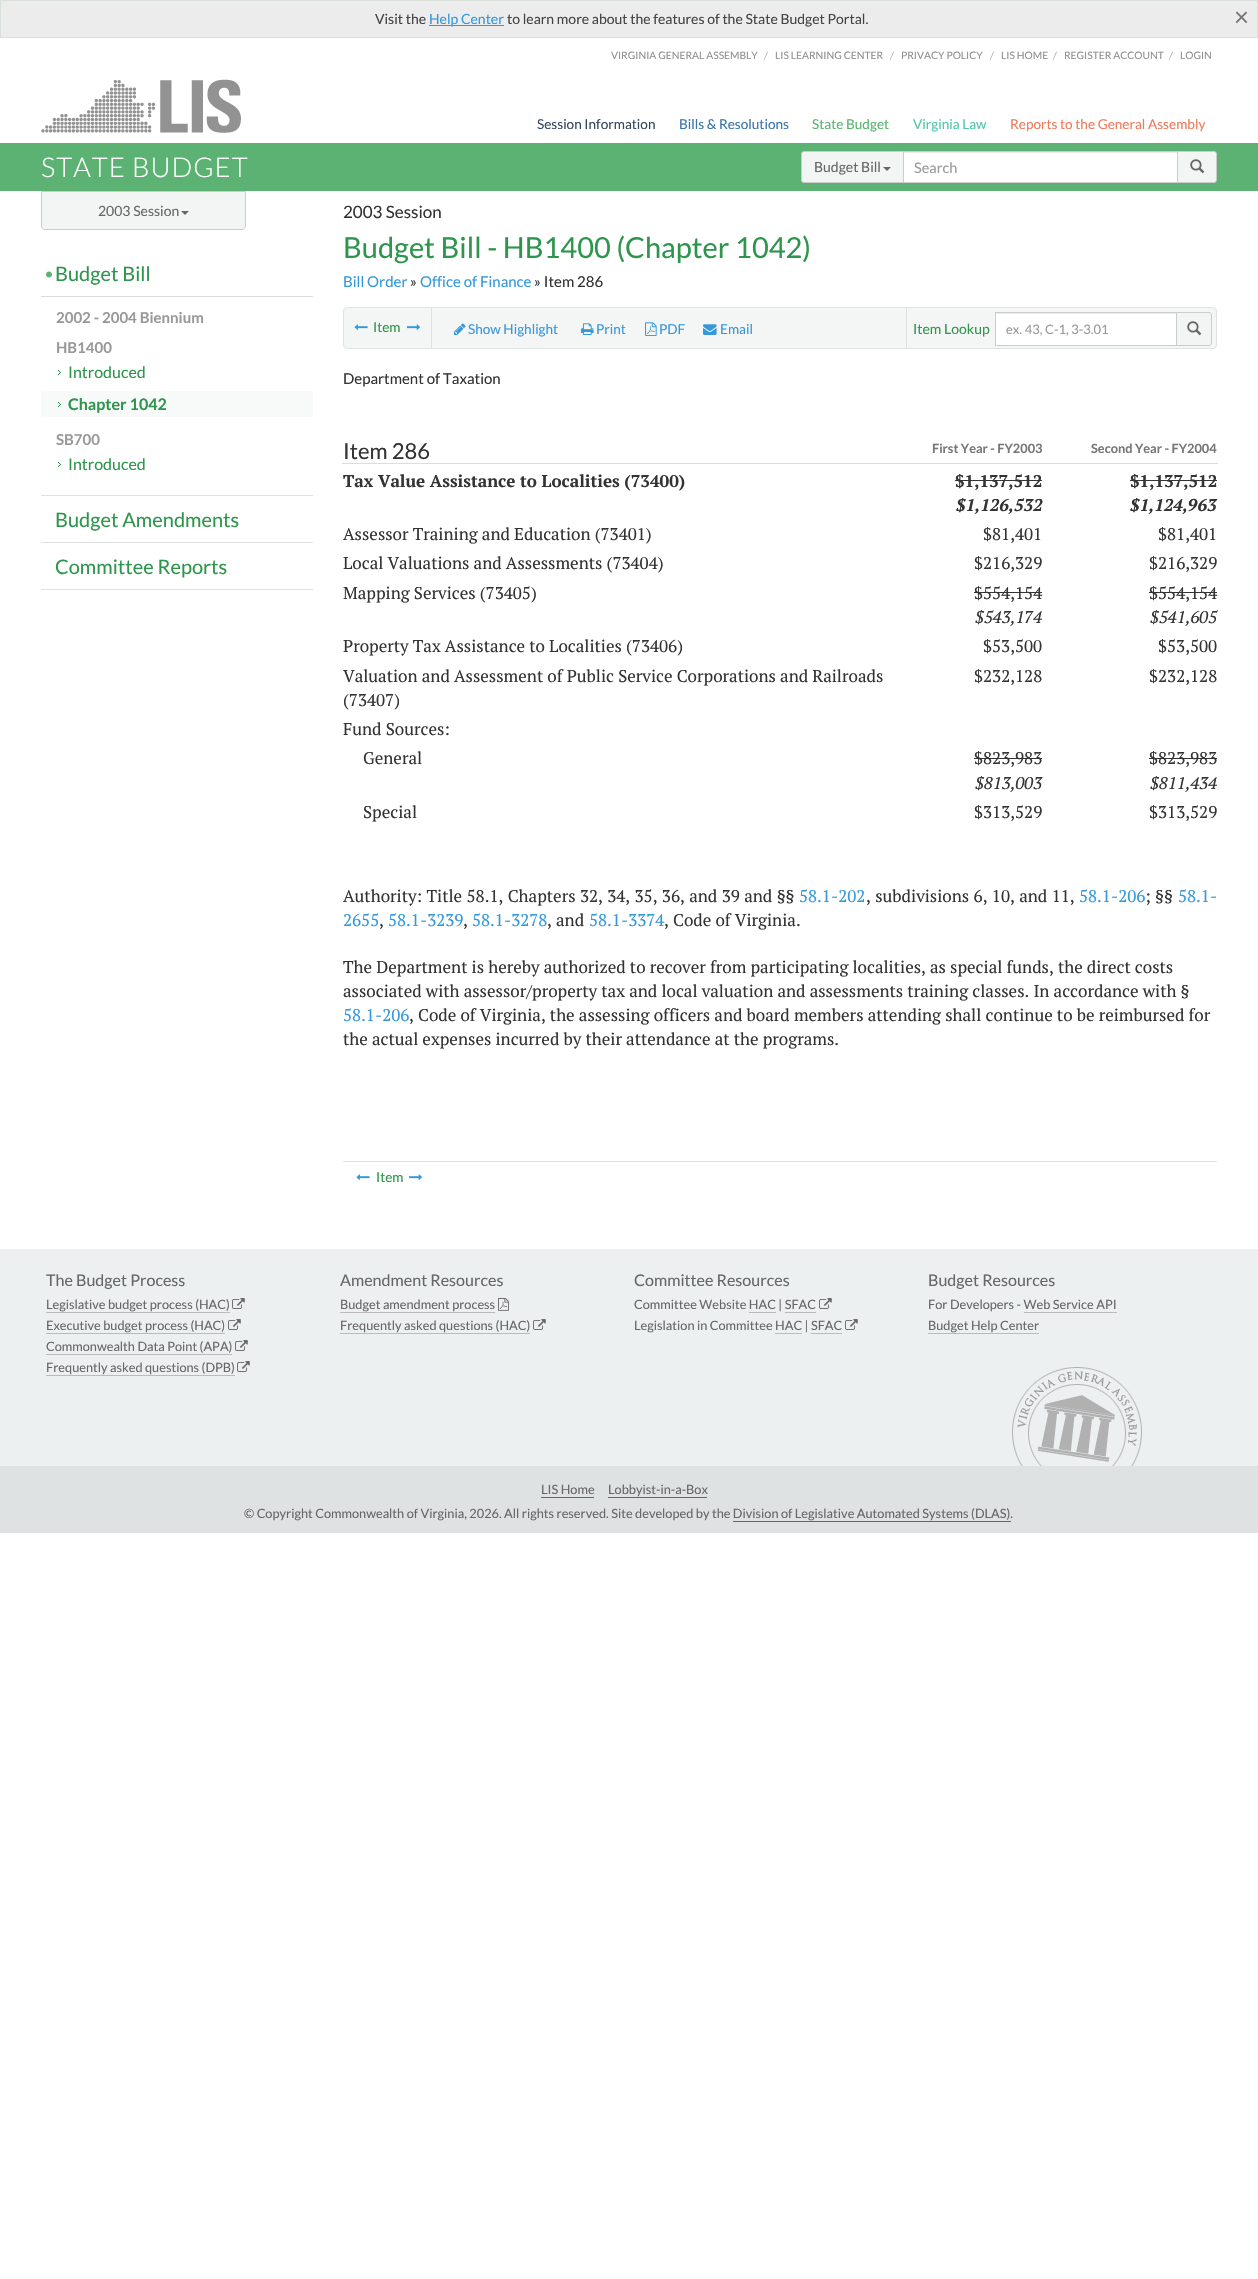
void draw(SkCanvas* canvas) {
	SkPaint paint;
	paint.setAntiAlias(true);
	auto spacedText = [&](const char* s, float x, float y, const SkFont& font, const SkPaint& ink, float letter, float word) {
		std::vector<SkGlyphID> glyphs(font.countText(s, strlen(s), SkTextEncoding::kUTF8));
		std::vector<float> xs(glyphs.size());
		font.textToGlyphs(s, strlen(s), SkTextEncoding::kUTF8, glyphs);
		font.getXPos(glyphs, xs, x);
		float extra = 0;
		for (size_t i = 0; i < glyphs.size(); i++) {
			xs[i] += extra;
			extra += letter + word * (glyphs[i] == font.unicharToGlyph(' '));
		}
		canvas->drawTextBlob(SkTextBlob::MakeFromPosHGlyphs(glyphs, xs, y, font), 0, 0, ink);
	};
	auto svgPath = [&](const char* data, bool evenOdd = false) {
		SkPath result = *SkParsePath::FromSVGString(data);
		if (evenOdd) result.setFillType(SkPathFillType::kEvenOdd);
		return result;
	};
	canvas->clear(0xffffffff);
	paint.setColor(0xffececec);
	canvas->drawRect(SkRect::MakeXYWH(0.5, 0.5, 1257, 37), paint);
	paint.setStroke(true);
	paint.setStrokeWidth(1);
	paint.setColor(0xffd9e0da);
	canvas->drawRect(SkRect::MakeXYWH(0.5, 0.5, 1257, 37), paint);
	SkFont f1(fontMgr->matchFamilyStyle("Lato", SkFontStyle::Normal()), 14);
	f1.setSubpixel(true);
	paint.setStroke(false);
	paint.setColor(0xff444444);
	canvas->drawString("Visit the", 375, 24, f1, paint);
	paint.setColor(0xff3498db);
	canvas->drawRect(SkRect::MakeXYWH(429, 25, 75, 1), paint);
	canvas->drawString("Help Center", 429, 24, f1, paint);
	paint.setColor(0xff444444);
	canvas->drawString("to learn more about the features of the State Budget Portal.", 507, 24, f1, paint);
	SkFont f2(fontMgr->matchFamilyStyle("Lato", SkFontStyle::Normal()), 26);
	f2.setSubpixel(true);
	paint.setColor(0xff777777);
	canvas->drawString("×", 1234, 26, f2, paint);
	SkFont f3(fontMgr->matchFamilyStyle("Lato", SkFontStyle::Normal()), 10.25);
	f3.setSubpixel(true);
	paint.setColor(0xff8f9090);
	canvas->drawString("VIRGINIA GENERAL ASSEMBLY", 611, 59, f3, paint);
	SkFont f4(fontMgr->matchFamilyStyle("PT Serif", SkFontStyle::Normal()), 10.25);
	f4.setSubpixel(true);
	canvas->drawString("/", 764, 59, f4, paint);
	canvas->drawString("LIS LEARNING CENTER", 775, 59, f3, paint);
	canvas->drawString("/", 890, 59, f4, paint);
	canvas->drawString("PRIVACY POLICY", 901, 59, f3, paint);
	canvas->drawString("/", 990, 59, f4, paint);
	canvas->drawString("LIS HOME", 1001, 59, f3, paint);
	canvas->drawString("/", 1053, 59, f4, paint);
	canvas->drawString("REGISTER ACCOUNT", 1064, 59, f3, paint);
	canvas->drawString("/", 1169, 59, f4, paint);
	canvas->drawString("LOGIN", 1180, 59, f3, paint);
	canvas->drawImageRect(SkImages::DeferredFromEncodedData(SkData::MakeFromFileName("img1.png")), SkRect::MakeXYWH(41, 79, 200, 54), SkSamplingOptions());
	SkFont f5(fontMgr->matchFamilyStyle("Lato", SkFontStyle::Normal()), 13.6);
	f5.setSubpixel(true);
	paint.setColor(0xff34495e);
	canvas->drawString("Session Information", 537, 129, f5, paint);
	paint.setColor(0xff3774ac);
	canvas->drawString("Bills & Resolutions", 679, 129, f5, paint);
	paint.setColor(0xff57b36f);
	canvas->drawString("State Budget", 812, 129, f5, paint);
	paint.setColor(0xff4fc6ac);
	canvas->drawString("Virginia Law", 913, 129, f5, paint);
	paint.setColor(0xffef795a);
	canvas->drawString("Reports to the General Assembly", 1010, 129, f5, paint);
	paint.setColor(0xff5bb272);
	canvas->drawRect(SkRect::MakeXYWH(0, 143, 1258, 48), paint);
	SkFont f6(fontMgr->matchFamilyStyle("Lato", SkFontStyle(300, SkFontStyle::kNormal_Width, SkFontStyle::kUpright_Slant)), 27.25);
	f6.setSubpixel(true);
	paint.setColor(0xffffffff);
	spacedText("STATE BUDGET", 41, 177, f6, paint, 1, 0);
	canvas->drawRect(SkRect::MakeXYWH(904, 153, 273, 29), paint);
	paint.setColor(0xffececec);
	canvas->drawRect(SkRect::MakeXYWH(904, 152, 273, 1), paint);
	paint.setStroke(true);
	paint.setColor(0xffcccccc);
	canvas->drawRect(SkRect::MakeXYWH(903.5, 151.5, 274, 31), paint);
	paint.setStroke(false);
	paint.setColor(0xfff3f5f5);
	canvas->drawPath(svgPath("M804 151.5H903.5V182.5H804C802.5 182.5 801.5 181.5 801.5 180V154C801.5 152.5 802.5 151.5 804 151.5Z"), paint);
	paint.setStroke(true);
	paint.setColor(0xffcccccc);
	canvas->drawPath(svgPath("M804 151.5H903.5V182.5H804C802.5 182.5 801.5 181.5 801.5 180V154C801.5 152.5 802.5 151.5 804 151.5Z"), paint);
	paint.setStroke(false);
	paint.setColor(0xff666666);
	canvas->drawString("Budget Bill", 814, 172, f1, paint);
	canvas->drawPath(svgPath("M883 167H891L887 171Z"), paint);
	SkFont f7(fontMgr->matchFamilyStyle("Lato", SkFontStyle::Normal()), 14.5);
	f7.setSubpixel(true);
	paint.setColor(0xff999999);
	canvas->drawString("Search", 914, 173, f7, paint);
	paint.setColor(0xfff3f5f5);
	canvas->drawPath(svgPath("M1177.5 151.5H1214C1215.5 151.5 1216.5 152.5 1216.5 154V180C1216.5 181.5 1215.5 182.5 1214 182.5H1177.5Z"), paint);
	paint.setStroke(true);
	paint.setColor(0xffcccccc);
	canvas->drawPath(svgPath("M1177.5 151.5H1214C1215.5 151.5 1216.5 152.5 1216.5 154V180C1216.5 181.5 1215.5 182.5 1214 182.5H1177.5Z"), paint);
	canvas->drawImageRect(SkImages::DeferredFromEncodedData(SkData::MakeFromFileName("img2.png")), SkRect::MakeXYWH(1190, 159, 15, 15), SkSamplingOptions());
	paint.setStroke(false);
	paint.setColor(0xfff3f5f5);
	canvas->drawPath(svgPath("M41.5 191.5H245.5V226C245.5 228 244 229.5 242 229.5H45C43 229.5 41.5 228 41.5 226Z"), paint);
	paint.setStroke(true);
	paint.setColor(0xffcccccc);
	canvas->drawPath(svgPath("M41.5 191.5H245.5V226C245.5 228 244 229.5 242 229.5H45C43 229.5 41.5 228 41.5 226Z"), paint);
	paint.setStroke(false);
	paint.setColor(0xff666666);
	canvas->drawString("2003 Session", 98, 216, f1, paint);
	canvas->drawPath(svgPath("M181 211H189L185 215Z"), paint);
	paint.setColor(0xffdee2e3);
	canvas->drawRect(SkRect::MakeXYWH(41, 495, 272, 1), paint);
	canvas->drawImageRect(SkImages::DeferredFromEncodedData(SkData::MakeFromFileName("img3.png")), SkRect::MakeXYWH(46, 271, 6, 7), SkSamplingOptions());
	SkFont f8(fontMgr->matchFamilyStyle("Lato", SkFontStyle::Normal()), 20);
	f8.setSubpixel(true);
	paint.setColor(0xff2e954c);
	canvas->drawString("Budget Bill", 55, 281, f8, paint);
	paint.setColor(0xffdddddd);
	canvas->drawRect(SkRect::MakeXYWH(41, 296, 272, 1), paint);
	SkFont f9(fontMgr->matchFamilyStyle("Lato", SkFontStyle::Bold()), 15);
	f9.setSubpixel(true);
	paint.setColor(0xff999999);
	canvas->drawString("2002 - 2004 Biennium", 56, 323, f9, paint);
	canvas->drawString("HB1400", 56, 353, f9, paint);
	canvas->drawImageRect(SkImages::DeferredFromEncodedData(SkData::MakeFromFileName("img4.png")), SkRect::MakeXYWH(58, 370, 3, 5), SkSamplingOptions());
	SkFont f10(fontMgr->matchFamilyStyle("Lato", SkFontStyle::Normal()), 16);
	f10.setSubpixel(true);
	paint.setColor(0xff2e954c);
	canvas->drawString("Introduced", 68, 378, f10, paint);
	paint.setColor(0xfff8f9f9);
	canvas->drawRect(SkRect::MakeXYWH(41, 391, 272, 26), paint);
	canvas->drawImageRect(SkImages::DeferredFromEncodedData(SkData::MakeFromFileName("img5.png")), SkRect::MakeXYWH(58, 402, 3, 5), SkSamplingOptions());
	SkFont f11(fontMgr->matchFamilyStyle("Lato", SkFontStyle::Bold()), 16);
	f11.setSubpixel(true);
	paint.setColor(0xff2e954c);
	canvas->drawString("Chapter 1042", 68, 410, f11, paint);
	paint.setColor(0xff999999);
	canvas->drawString("SB700", 56, 445, f9, paint);
	canvas->drawImageRect(SkImages::DeferredFromEncodedData(SkData::MakeFromFileName("img4.png")), SkRect::MakeXYWH(58, 462, 3, 5), SkSamplingOptions());
	paint.setColor(0xff2e954c);
	canvas->drawString("Introduced", 68, 470, f10, paint);
	paint.setColor(0xffdee2e3);
	canvas->drawRect(SkRect::MakeXYWH(41, 542, 272, 1), paint);
	paint.setColor(0xff2e954c);
	canvas->drawString("Budget Amendments", 55, 527, f8, paint);
	paint.setColor(0xffdee2e3);
	canvas->drawRect(SkRect::MakeXYWH(41, 589, 272, 1), paint);
	paint.setColor(0xff2e954c);
	canvas->drawString("Committee Reports", 55, 574, f8, paint);
	SkFont f12(fontMgr->matchFamilyStyle("Lato", SkFontStyle::Normal()), 17);
	f12.setSubpixel(true);
	paint.setColor(0xff333333);
	canvas->drawString("2003 Session", 343, 218, f12, paint);
	SkFont f13(fontMgr->matchFamilyStyle("Lato", SkFontStyle::Normal()), 29);
	f13.setSubpixel(true);
	paint.setColor(0xff2e954c);
	canvas->drawString("Budget Bill - HB1400 (Chapter 1042)", 343, 258, f13, paint);
	SkFont f14(fontMgr->matchFamilyStyle("Lato", SkFontStyle::Normal()), 15);
	f14.setSubpixel(true);
	paint.setColor(0xff3498db);
	canvas->drawString("Bill Order", 343, 287, f14, paint);
	paint.setColor(0xff333333);
	canvas->drawString("»", 410, 287, f14, paint);
	paint.setColor(0xff3498db);
	canvas->drawString("Office of Finance", 420, 287, f14, paint);
	paint.setColor(0xff333333);
	canvas->drawString("» Item 286", 534, 287, f14, paint);
	paint.setColor(0xfff4f5f5);
	canvas->drawRoundRect(SkRect::MakeXYWH(343.5, 307.5, 873, 41), 3.5, 3.5, paint);
	paint.setStroke(true);
	paint.setColor(0xffdee2e3);
	canvas->drawRoundRect(SkRect::MakeXYWH(343.5, 307.5, 873, 41), 3.5, 3.5, paint);
	paint.setStroke(false);
	canvas->drawRect(SkRect::MakeXYWH(431, 308, 1, 40), paint);
	canvas->drawImageRect(SkImages::DeferredFromEncodedData(SkData::MakeFromFileName("img6.png")), SkRect::MakeXYWH(354, 324, 14, 6), SkSamplingOptions());
	paint.setColor(0xff2e954c);
	canvas->drawString("Item", 373, 332, f5, paint);
	canvas->drawImageRect(SkImages::DeferredFromEncodedData(SkData::MakeFromFileName("img7.png")), SkRect::MakeXYWH(407, 324, 14, 6), SkSamplingOptions());
	canvas->drawImageRect(SkImages::DeferredFromEncodedData(SkData::MakeFromFileName("img8.png")), SkRect::MakeXYWH(454, 323, 12, 12), SkSamplingOptions());
	paint.setColor(0xff3498db);
	canvas->drawString("Show Highlight", 468, 334, f5, paint);
	canvas->drawImageRect(SkImages::DeferredFromEncodedData(SkData::MakeFromFileName("img9.png")), SkRect::MakeXYWH(581, 323, 13, 12), SkSamplingOptions());
	canvas->drawString("Print", 596, 334, f5, paint);
	canvas->drawImageRect(SkImages::DeferredFromEncodedData(SkData::MakeFromFileName("img10.png")), SkRect::MakeXYWH(645, 322, 12, 14), SkSamplingOptions());
	canvas->drawString("PDF", 659, 334, f5, paint);
	canvas->drawImageRect(SkImages::DeferredFromEncodedData(SkData::MakeFromFileName("img11.png")), SkRect::MakeXYWH(703, 324, 14, 11), SkSamplingOptions());
	canvas->drawString("Email", 720, 334, f5, paint);
	paint.setColor(0xffdee2e3);
	canvas->drawRect(SkRect::MakeXYWH(906, 308, 1, 40), paint);
	paint.setColor(0xff2e954c);
	canvas->drawString("Item Lookup", 913, 334, f1, paint);
	paint.setColor(0xffffffff);
	canvas->drawRect(SkRect::MakeXYWH(996, 314, 180, 31), paint);
	paint.setColor(0xffececec);
	canvas->drawRect(SkRect::MakeXYWH(996, 313, 180, 1), paint);
	paint.setStroke(true);
	paint.setColor(0xffcccccc);
	canvas->drawRect(SkRect::MakeXYWH(995.5, 312.5, 181, 33), paint);
	SkFont f15(fontMgr->matchFamilyStyle("Lato", SkFontStyle::Normal()), 13);
	f15.setSubpixel(true);
	paint.setStroke(false);
	paint.setColor(0xff999999);
	canvas->drawString("ex. 43, C-1, 3-3.01", 1006, 334, f15, paint);
	paint.setColor(0xfff3f5f5);
	canvas->drawPath(svgPath("M1176.5 312.5H1209C1210.5 312.5 1211.5 313.5 1211.5 315V343C1211.5 344.5 1210.5 345.5 1209 345.5H1176.5Z"), paint);
	paint.setStroke(true);
	paint.setColor(0xffcccccc);
	canvas->drawPath(svgPath("M1176.5 312.5H1209C1210.5 312.5 1211.5 313.5 1211.5 315V343C1211.5 344.5 1210.5 345.5 1209 345.5H1176.5Z"), paint);
	canvas->drawImageRect(SkImages::DeferredFromEncodedData(SkData::MakeFromFileName("img2.png")), SkRect::MakeXYWH(1187, 321, 15, 15), SkSamplingOptions());
	paint.setStroke(false);
	paint.setColor(0xff333333);
	canvas->drawString("Department of Taxation", 343, 384, f14, paint);
	SkFont f16(fontMgr->matchFamilyStyle("Lato", SkFontStyle::Normal()), 22);
	f16.setSubpixel(true);
	canvas->drawString("Item 286", 343, 459, f16, paint);
	SkFont f17(fontMgr->matchFamilyStyle("Lato", SkFontStyle::Bold()), 12.75);
	f17.setSubpixel(true);
	paint.setColor(0xff777777);
	canvas->drawString("First Year - FY2003", 932, 453, f17, paint);
	paint.setColor(0xffdddddd);
	canvas->drawRect(SkRect::MakeXYWH(342, 463, 876, 1), paint);
	paint.setColor(0xff777777);
	canvas->drawString("Second Year - FY2004", 1091, 453, f17, paint);
	SkFont f18(fontMgr->matchFamilyStyle("PT Serif", SkFontStyle::Bold()), 17);
	f18.setSubpixel(true);
	paint.setColor(0xff333333);
	canvas->drawString("Tax Value Assistance to Localities (73400)", 343, 487, f18, paint);
	canvas->drawString("$1,137,512", 955, 487, f18, paint);
	canvas->drawRect(SkRect::MakeXYWH(955, 480, 87, 1), paint);
	SkFont f19(fontMgr->matchFamilyStyle("PT Serif", SkFontStyle::BoldItalic()), 17);
	f19.setSubpixel(true);
	canvas->drawString("$1,126,532", 956, 511, f19, paint);
	canvas->drawString("$1,137,512", 1130, 487, f18, paint);
	canvas->drawRect(SkRect::MakeXYWH(1130, 480, 87, 1), paint);
	canvas->drawString("$1,124,963", 1130, 511, f19, paint);
	SkFont f20(fontMgr->matchFamilyStyle("PT Serif", SkFontStyle::Normal()), 17);
	f20.setSubpixel(true);
	canvas->drawString("Assessor Training and Education (73401)", 343, 540, f20, paint);
	canvas->drawString("$81,401", 983, 540, f20, paint);
	canvas->drawString("$81,401", 1158, 540, f20, paint);
	canvas->drawString("Local Valuations and Assessments (73404)", 343, 569, f20, paint);
	canvas->drawString("$216,329", 974, 569, f20, paint);
	canvas->drawString("$216,329", 1149, 569, f20, paint);
	canvas->drawString("Mapping Services (73405)", 343, 599, f20, paint);
	canvas->drawString("$554,154", 974, 599, f20, paint);
	canvas->drawRect(SkRect::MakeXYWH(974, 592, 68, 1), paint);
	SkFont f21(fontMgr->matchFamilyStyle("PT Serif", SkFontStyle::Italic()), 17);
	f21.setSubpixel(true);
	canvas->drawString("$543,174", 975, 623, f21, paint);
	canvas->drawString("$554,154", 1149, 599, f20, paint);
	canvas->drawRect(SkRect::MakeXYWH(1149, 592, 68, 1), paint);
	canvas->drawString("$541,605", 1150, 623, f21, paint);
	canvas->drawString("Property Tax Assistance to Localities (73406)", 343, 652, f20, paint);
	canvas->drawString("$53,500", 983, 652, f20, paint);
	canvas->drawString("$53,500", 1158, 652, f20, paint);
	canvas->drawString("Valuation and Assessment of Public Service Corporations and Railroads", 343, 682, f20, paint);
	canvas->drawString("(73407)", 343, 706, f20, paint);
	canvas->drawString("$232,128", 974, 682, f20, paint);
	canvas->drawString("$232,128", 1149, 682, f20, paint);
	canvas->drawString("Fund Sources:", 343, 735, f20, paint);
	canvas->drawString("General", 363, 764, f20, paint);
	canvas->drawString("$823,983", 974, 764, f20, paint);
	canvas->drawRect(SkRect::MakeXYWH(974, 758, 68, 1), paint);
	canvas->drawString("$813,003", 975, 789, f21, paint);
	canvas->drawString("$823,983", 1149, 764, f20, paint);
	canvas->drawRect(SkRect::MakeXYWH(1149, 758, 68, 1), paint);
	canvas->drawString("$811,434", 1150, 789, f21, paint);
	canvas->drawString("Special", 363, 818, f20, paint);
	canvas->drawString("$313,529", 974, 818, f20, paint);
	canvas->drawString("$313,529", 1149, 818, f20, paint);
	spacedText("Authority: Title 58.1, Chapters 32, 34, 35, 36, and 39 and §§", 343, 902, f20, paint, 0, 0.25);
	paint.setColor(0xff3498db);
	canvas->drawString("58.1-202", 799, 902, f20, paint);
	paint.setColor(0xff333333);
	spacedText(", subdivisions 6, 10, and 11,", 866, 902, f20, paint, 0, 0.25);
	paint.setColor(0xff3498db);
	canvas->drawString("58.1-206", 1079, 902, f20, paint);
	paint.setColor(0xff333333);
	spacedText("; §§", 1145, 902, f20, paint, 0, 0.25);
	paint.setColor(0xff3498db);
	canvas->drawString("58.1-", 1178, 902, f20, paint);
	canvas->drawString("2655", 343, 926, f20, paint);
	paint.setColor(0xff333333);
	canvas->drawString(",", 379, 926, f20, paint);
	paint.setColor(0xff3498db);
	canvas->drawString("58.1-3239", 388, 926, f20, paint);
	paint.setColor(0xff333333);
	canvas->drawString(",", 463, 926, f20, paint);
	paint.setColor(0xff3498db);
	canvas->drawString("58.1-3278", 472, 926, f20, paint);
	paint.setColor(0xff333333);
	canvas->drawString(", and", 547, 926, f20, paint);
	paint.setColor(0xff3498db);
	canvas->drawString("58.1-3374", 589, 926, f20, paint);
	paint.setColor(0xff333333);
	canvas->drawString(", Code of Virginia.", 664, 926, f20, paint);
	canvas->drawString("The Department is hereby authorized to recover from participating localities, as special funds, the direct costs", 343, 973, f20, paint);
	canvas->drawString("associated with assessor/property tax and local valuation and assessments training classes. In accordance with §", 343, 997, f20, paint);
	paint.setColor(0xff3498db);
	canvas->drawString("58.1-206", 343, 1021, f20, paint);
	paint.setColor(0xff333333);
	canvas->drawString(", Code of Virginia, the assessing officers and board members attending shall continue to be reimbursed for", 409, 1021, f20, paint);
	canvas->drawString("the actual expenses incurred by their attendance at the programs.", 343, 1045, f20, paint);
	paint.setColor(0xffdee2e3);
	canvas->drawRect(SkRect::MakeXYWH(343, 1161, 874, 1), paint);
	canvas->drawImageRect(SkImages::DeferredFromEncodedData(SkData::MakeFromFileName("img12.png")), SkRect::MakeXYWH(356, 1174, 14, 6), SkSamplingOptions());
	paint.setColor(0xff2e954c);
	canvas->drawString("Item", 376, 1182, f5, paint);
	canvas->drawImageRect(SkImages::DeferredFromEncodedData(SkData::MakeFromFileName("img13.png")), SkRect::MakeXYWH(409, 1174, 14, 6), SkSamplingOptions());
	paint.setColor(0xffecf0f1);
	canvas->drawRect(SkRect::MakeXYWH(0, 1249, 1258, 217), paint);
	SkFont f22(fontMgr->matchFamilyStyle("Lato", SkFontStyle::Normal()), 16.1);
	f22.setSubpixel(true);
	paint.setColor(0xff666666);
	canvas->drawString("The Budget Process", 46, 1286, f22, paint);
	SkFont f23(fontMgr->matchFamilyStyle("Lato", SkFontStyle::Normal()), 12.75);
	f23.setSubpixel(true);
	canvas->drawString("Legislative budget process (HAC)", 46, 1309, f23, paint);
	paint.setColor(0xffbbbbbb);
	canvas->drawRect(SkRect::MakeXYWH(46, 1312, 184, 1), paint);
	canvas->drawImageRect(SkImages::DeferredFromEncodedData(SkData::MakeFromFileName("img14.png")), SkRect::MakeXYWH(232, 1298, 13, 11), SkSamplingOptions());
	paint.setColor(0xff666666);
	canvas->drawString("Executive budget process (HAC)", 46, 1330, f23, paint);
	paint.setColor(0xffbbbbbb);
	canvas->drawRect(SkRect::MakeXYWH(46, 1333, 179, 1), paint);
	canvas->drawImageRect(SkImages::DeferredFromEncodedData(SkData::MakeFromFileName("img14.png")), SkRect::MakeXYWH(228, 1319, 13, 11), SkSamplingOptions());
	paint.setColor(0xff666666);
	canvas->drawString("Commonwealth Data Point (APA)", 46, 1351, f23, paint);
	paint.setColor(0xffbbbbbb);
	canvas->drawRect(SkRect::MakeXYWH(46, 1354, 186, 1), paint);
	canvas->drawImageRect(SkImages::DeferredFromEncodedData(SkData::MakeFromFileName("img14.png")), SkRect::MakeXYWH(235, 1340, 13, 11), SkSamplingOptions());
	paint.setColor(0xff666666);
	canvas->drawString("Frequently asked questions (DPB)", 46, 1372, f23, paint);
	paint.setColor(0xffbbbbbb);
	canvas->drawRect(SkRect::MakeXYWH(46, 1375, 189, 1), paint);
	canvas->drawImageRect(SkImages::DeferredFromEncodedData(SkData::MakeFromFileName("img14.png")), SkRect::MakeXYWH(237, 1361, 13, 11), SkSamplingOptions());
	paint.setColor(0xff666666);
	canvas->drawString("Amendment Resources", 340, 1286, f22, paint);
	canvas->drawString("Budget amendment process", 340, 1309, f23, paint);
	paint.setColor(0xffbbbbbb);
	canvas->drawRect(SkRect::MakeXYWH(340, 1312, 155, 1), paint);
	canvas->drawImageRect(SkImages::DeferredFromEncodedData(SkData::MakeFromFileName("img15.png")), SkRect::MakeXYWH(498, 1298, 11, 13), SkSamplingOptions());
	paint.setColor(0xff666666);
	canvas->drawString("Frequently asked questions (HAC)", 340, 1330, f23, paint);
	paint.setColor(0xffbbbbbb);
	canvas->drawRect(SkRect::MakeXYWH(340, 1333, 190, 1), paint);
	canvas->drawImageRect(SkImages::DeferredFromEncodedData(SkData::MakeFromFileName("img14.png")), SkRect::MakeXYWH(533, 1319, 13, 11), SkSamplingOptions());
	paint.setColor(0xff666666);
	canvas->drawString("Committee Resources", 634, 1286, f22, paint);
	canvas->drawString("Committee Website HAC | SFAC", 634, 1309, f23, paint);
	canvas->drawImageRect(SkImages::DeferredFromEncodedData(SkData::MakeFromFileName("img14.png")), SkRect::MakeXYWH(819, 1298, 13, 11), SkSamplingOptions());
	paint.setColor(0xffbbbbbb);
	canvas->drawRect(SkRect::MakeXYWH(749, 1312, 27, 1), paint);
	canvas->drawRect(SkRect::MakeXYWH(785, 1312, 31, 1), paint);
	paint.setColor(0xff666666);
	canvas->drawString("Legislation in Committee HAC | SFAC", 634, 1330, f23, paint);
	canvas->drawImageRect(SkImages::DeferredFromEncodedData(SkData::MakeFromFileName("img14.png")), SkRect::MakeXYWH(845, 1319, 13, 11), SkSamplingOptions());
	paint.setColor(0xffbbbbbb);
	canvas->drawRect(SkRect::MakeXYWH(775, 1333, 27, 1), paint);
	canvas->drawRect(SkRect::MakeXYWH(811, 1333, 31, 1), paint);
	paint.setColor(0xff666666);
	canvas->drawString("Budget Resources", 928, 1286, f22, paint);
	canvas->drawString("For Developers - Web Service API", 928, 1309, f23, paint);
	paint.setColor(0xffbbbbbb);
	canvas->drawRect(SkRect::MakeXYWH(1024, 1312, 93, 1), paint);
	paint.setColor(0xff666666);
	canvas->drawString("Budget Help Center", 928, 1330, f23, paint);
	paint.setColor(0xffbbbbbb);
	canvas->drawRect(SkRect::MakeXYWH(928, 1333, 111, 1), paint);
	canvas->drawImageRect(SkImages::DeferredFromEncodedData(SkData::MakeFromFileName("img16.png")), SkRect::MakeXYWH(1012, 1367, 130, 99), SkSamplingOptions());
	paint.setColor(0xffdfe2e3);
	canvas->drawRect(SkRect::MakeXYWH(0, 1466, 1258, 67), paint);
	paint.setColor(0xff666666);
	canvas->drawString("LIS Home", 541, 1494, f23, paint);
	canvas->drawRect(SkRect::MakeXYWH(541, 1497, 53, 1), paint);
	canvas->drawString("Lobbyist-in-a-Box", 608, 1494, f23, paint);
	canvas->drawRect(SkRect::MakeXYWH(608, 1497, 99, 1), paint);
	canvas->drawString("© Copyright Commonwealth of Virginia, 2026. All rights reserved. Site developed by the Division of Legislative Automated Systems (DLAS).", 244, 1518, f23, paint);
	canvas->drawRect(SkRect::MakeXYWH(733, 1521, 278, 1), paint);
}
